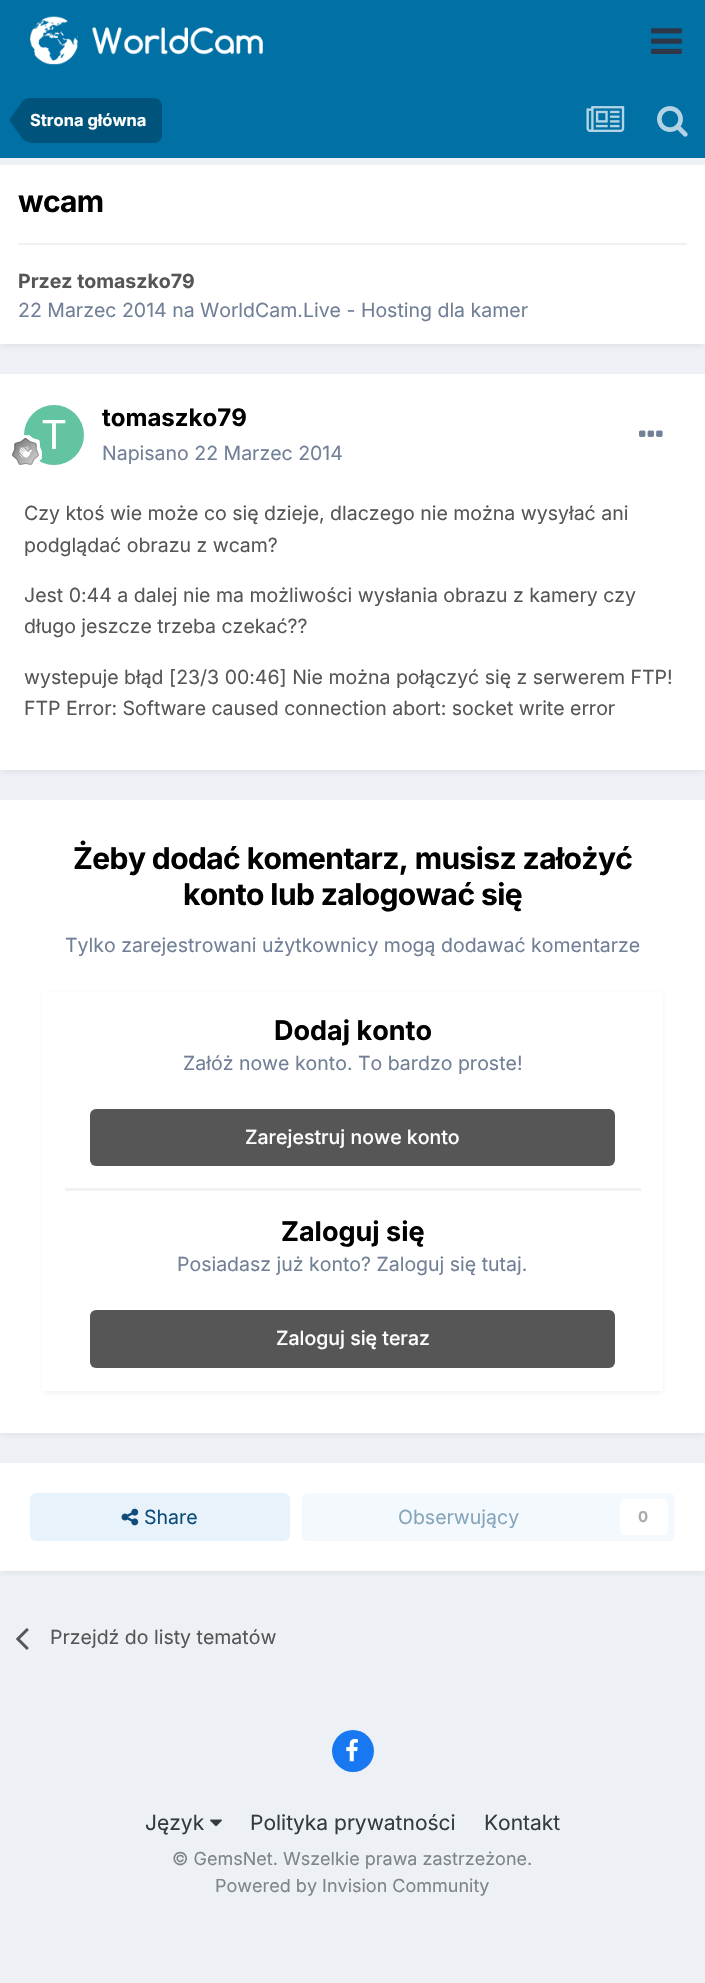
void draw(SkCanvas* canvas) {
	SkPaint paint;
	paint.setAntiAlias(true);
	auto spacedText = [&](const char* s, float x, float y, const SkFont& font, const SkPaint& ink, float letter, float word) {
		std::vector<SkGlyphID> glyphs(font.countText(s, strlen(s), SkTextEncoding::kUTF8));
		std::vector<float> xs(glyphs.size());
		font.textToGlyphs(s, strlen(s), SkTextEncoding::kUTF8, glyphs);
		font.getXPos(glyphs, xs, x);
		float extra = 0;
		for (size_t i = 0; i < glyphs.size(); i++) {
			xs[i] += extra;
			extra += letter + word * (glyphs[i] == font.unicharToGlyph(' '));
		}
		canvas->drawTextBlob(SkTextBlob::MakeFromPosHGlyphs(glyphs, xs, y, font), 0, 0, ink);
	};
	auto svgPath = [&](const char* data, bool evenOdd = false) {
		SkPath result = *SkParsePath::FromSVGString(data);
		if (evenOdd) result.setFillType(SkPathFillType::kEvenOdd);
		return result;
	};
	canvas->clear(0xffedf0f4);
	paint.setColor(0xff0070a5);
	canvas->drawRect(SkRect::MakeXYWH(0, 0, 705, 158), paint);
	canvas->drawImageRect(SkImages::DeferredFromEncodedData(SkData::MakeFromFileName("img1.png")), SkRect::MakeXYWH(30, 16, 233, 49), SkSamplingOptions());
	canvas->drawImageRect(SkImages::DeferredFromEncodedData(SkData::MakeFromFileName("img2.png")), SkRect::MakeXYWH(651, 28, 31, 26), SkSamplingOptions());
	paint.setColor(0xff00547c);
	canvas->drawPath(svgPath("M30 98H154C158.5 98 162 101.5 162 106V135C162 139.5 158.5 143 154 143H30Z"), paint);
	canvas->drawPath(svgPath("M30 120V142C27 142 24.5 141 22 138L10.5 122L10 120ZM30 120H10L10.5 118L22 102C24.5 99 27 98 30 98Z"), paint);
	SkFont f1(fontMgr->matchFamilyStyle("Inter", SkFontStyle::Bold()), 16.5);
	f1.setSubpixel(true);
	paint.setColor(0xffffffff);
	canvas->drawString("Strona główna", 30, 126, f1, paint);
	canvas->drawImageRect(SkImages::DeferredFromEncodedData(SkData::MakeFromFileName("img3.png")), SkRect::MakeXYWH(586, 106, 39, 26), SkSamplingOptions());
	canvas->drawImageRect(SkImages::DeferredFromEncodedData(SkData::MakeFromFileName("img4.png")), SkRect::MakeXYWH(657, 106, 31, 31), SkSamplingOptions());
	paint.setColor(0x1a2d3748);
	paint.setMaskFilter(SkMaskFilter::MakeBlur(kNormal_SkBlurStyle, 3));
	canvas->drawRect(SkRect::MakeXYWH(2, 170, 702, 175), paint);
	paint.setMaskFilter(nullptr);
	paint.setColor(0xffffffff);
	canvas->drawRect(SkRect::MakeXYWH(0, 165, 705, 179), paint);
	SkFont f2(fontMgr->matchFamilyStyle("Inter", SkFontStyle::Bold()), 30);
	f2.setSubpixel(true);
	paint.setColor(0xff000000);
	spacedText("wcam", 18, 212, f2, paint, -0.6, 0);
	paint.setColor(0xfff1f1f1);
	canvas->drawRect(SkRect::MakeXYWH(18, 243, 669, 2), paint);
	SkFont f3(fontMgr->matchFamilyStyle("Inter", SkFontStyle::Bold()), 19.5);
	f3.setSubpixel(true);
	paint.setColor(0xff565656);
	canvas->drawString("Przez tomaszko79", 18, 288, f3, paint);
	SkFont f4(fontMgr->matchFamilyStyle("Inter", SkFontStyle::Normal()), 19.5);
	f4.setSubpixel(true);
	paint.setColor(0xff718096);
	canvas->drawString("22 Marzec 2014 na WorldCam.Live - Hosting dla kamer", 18, 317, f4, paint);
	paint.setColor(0x1a2d3748);
	paint.setMaskFilter(SkMaskFilter::MakeBlur(kNormal_SkBlurStyle, 3));
	canvas->drawRect(SkRect::MakeXYWH(2, 378, 702, 393), paint);
	paint.setMaskFilter(nullptr);
	paint.setColor(0xffffffff);
	canvas->drawRect(SkRect::MakeXYWH(0, 374, 705, 396), paint);
	canvas->drawImageRect(SkImages::DeferredFromEncodedData(SkData::MakeFromFileName("img5.png")), SkRect::MakeXYWH(24, 405, 60, 60), SkSamplingOptions());
	canvas->drawImageRect(SkImages::DeferredFromEncodedData(SkData::MakeFromFileName("img6.png")), SkRect::MakeXYWH(12, 435, 30, 30), SkSamplingOptions());
	SkFont f5(fontMgr->matchFamilyStyle("Inter", SkFontStyle::Bold()), 24);
	f5.setSubpixel(true);
	paint.setColor(0xff000000);
	canvas->drawString("tomaszko79", 102, 426, f5, paint);
	paint.setColor(0xff718096);
	canvas->drawString("Napisano 22 Marzec 2014", 102, 460, f4, paint);
	canvas->drawImageRect(SkImages::DeferredFromEncodedData(SkData::MakeFromFileName("img7.png")), SkRect::MakeXYWH(639, 430, 24, 7), SkSamplingOptions());
	paint.setColor(0xff565656);
	canvas->drawString("Czy ktoś wie może co się dzieje, dlaczego nie można wysyłać ani", 24, 520, f4, paint);
	canvas->drawString("podglądać obrazu z wcam?", 24, 552, f4, paint);
	canvas->drawString("Jest 0:44 a dalej nie ma możliwości wysłania obrazu z kamery czy", 24, 602, f4, paint);
	canvas->drawString("długo jeszcze trzeba czekać?\077", 24, 633, f4, paint);
	canvas->drawString("wystepuje błąd [23/3 00:46] Nie można połączyć się z serwerem FTP!", 24, 684, f4, paint);
	canvas->drawString("FTP Error: Software caused connection abort: socket write error", 24, 715, f4, paint);
	paint.setColor(0x1a2d3748);
	paint.setMaskFilter(SkMaskFilter::MakeBlur(kNormal_SkBlurStyle, 3));
	canvas->drawRect(SkRect::MakeXYWH(2, 804, 702, 630), paint);
	paint.setMaskFilter(nullptr);
	paint.setColor(0xffffffff);
	canvas->drawRect(SkRect::MakeXYWH(0, 800, 705, 633), paint);
	paint.setColor(0xff000000);
	spacedText("Żeby dodać komentarz, musisz założyć", 73, 869, f2, paint, -0.6, 0);
	spacedText("konto lub zalogować się", 183, 905, f2, paint, -0.6, 0);
	paint.setColor(0xff718096);
	canvas->drawString("Tylko zarejestrowani użytkownicy mogą dodawać komentarze", 65, 952, f4, paint);
	paint.setColor(0x1a2d3748);
	paint.setMaskFilter(SkMaskFilter::MakeBlur(kNormal_SkBlurStyle, 3));
	canvas->drawRect(SkRect::MakeXYWH(44, 995, 618, 397), paint);
	paint.setMaskFilter(nullptr);
	paint.setColor(0xffffffff);
	canvas->drawRect(SkRect::MakeXYWH(42, 992, 621, 399), paint);
	paint.setColor(0xfff2f2f2);
	canvas->drawRect(SkRect::MakeXYWH(65, 1188, 576, 3), paint);
	SkFont f6(fontMgr->matchFamilyStyle("Inter", SkFontStyle::Bold()), 27);
	f6.setSubpixel(true);
	paint.setColor(0xff000000);
	canvas->drawString("Dodaj konto", 274, 1040, f6, paint);
	paint.setColor(0xff718096);
	canvas->drawString("Załóż nowe konto. To bardzo proste!", 183, 1070, f4, paint);
	paint.setColor(0xff565656);
	canvas->drawRoundRect(SkRect::MakeXYWH(90, 1109, 525, 57), 6, 6, paint);
	SkFont f7(fontMgr->matchFamilyStyle("Inter", SkFontStyle(500, SkFontStyle::kNormal_Width, SkFontStyle::kUpright_Slant)), 19.5);
	f7.setSubpixel(true);
	paint.setColor(0xffffffff);
	canvas->drawString("Zarejestruj nowe konto", 245, 1144, f7, paint);
	paint.setColor(0xff000000);
	canvas->drawString("Zaloguj się", 281, 1241, f6, paint);
	paint.setColor(0xff718096);
	canvas->drawString("Posiadasz już konto? Zaloguj się tutaj.", 177, 1271, f4, paint);
	paint.setColor(0xff565656);
	canvas->drawRoundRect(SkRect::MakeXYWH(90, 1310, 525, 58), 6, 6, paint);
	paint.setColor(0xffffffff);
	canvas->drawString("Zaloguj się teraz", 276, 1345, f7, paint);
	paint.setColor(0x1a2d3748);
	paint.setMaskFilter(SkMaskFilter::MakeBlur(kNormal_SkBlurStyle, 3));
	canvas->drawRect(SkRect::MakeXYWH(2, 1467, 702, 105), paint);
	paint.setMaskFilter(nullptr);
	paint.setColor(0xffffffff);
	canvas->drawRect(SkRect::MakeXYWH(0, 1463, 705, 108), paint);
	paint.setColor(0xffe8f2fa);
	canvas->drawRoundRect(SkRect::MakeXYWH(30, 1493, 260, 48), 6, 6, paint);
	canvas->drawImageRect(SkImages::DeferredFromEncodedData(SkData::MakeFromFileName("img8.png")), SkRect::MakeXYWH(121, 1508, 18, 18), SkSamplingOptions());
	paint.setColor(0xff0e4c79);
	canvas->drawString("Share", 144, 1524, f4, paint);
	paint.setColor(0xfff4f9fd);
	canvas->drawRoundRect(SkRect::MakeXYWH(302, 1493, 373, 48), 6, 6, paint);
	paint.setColor(0xff87a6bc);
	canvas->drawString("Obserwujący", 398, 1524, f4, paint);
	paint.setColor(0xffffffff);
	canvas->drawRoundRect(SkRect::MakeXYWH(620, 1499, 48, 36), 6, 6, paint);
	SkFont f8(fontMgr->matchFamilyStyle("Inter", SkFontStyle::Bold()), 15);
	f8.setSubpixel(true);
	paint.setColor(0xffababab);
	canvas->drawString("0", 638, 1522, f8, paint);
	canvas->drawImageRect(SkImages::DeferredFromEncodedData(SkData::MakeFromFileName("img9.png")), SkRect::MakeXYWH(16, 1628, 13, 22), SkSamplingOptions());
	paint.setColor(0xff565656);
	canvas->drawString("Przejdź do listy tematów", 50, 1644, f4, paint);
	paint.setColor(0xff1778f2);
	canvas->drawCircle(353, 1751, 21, paint);
	canvas->drawImageRect(SkImages::DeferredFromEncodedData(SkData::MakeFromFileName("img10.png")), SkRect::MakeXYWH(346, 1738, 12, 24), SkSamplingOptions());
	SkFont f9(fontMgr->matchFamilyStyle("Inter", SkFontStyle::Normal()), 21);
	f9.setSubpixel(true);
	paint.setColor(0xff353c41);
	canvas->drawString("Język", 145, 1830, f9, paint);
	canvas->drawImageRect(SkImages::DeferredFromEncodedData(SkData::MakeFromFileName("img11.png")), SkRect::MakeXYWH(210, 1819, 12, 8), SkSamplingOptions());
	canvas->drawString("Polityka prywatności", 250, 1830, f9, paint);
	canvas->drawString("Kontakt", 484, 1830, f9, paint);
	SkFont f10(fontMgr->matchFamilyStyle("Inter", SkFontStyle::Normal()), 18);
	f10.setSubpixel(true);
	paint.setColor(0xff7f8489);
	canvas->drawString("© GemsNet. Wszelkie prawa zastrzeżone.", 172, 1865, f10, paint);
	canvas->drawString("Powered by Invision Community", 215, 1892, f10, paint);
}
